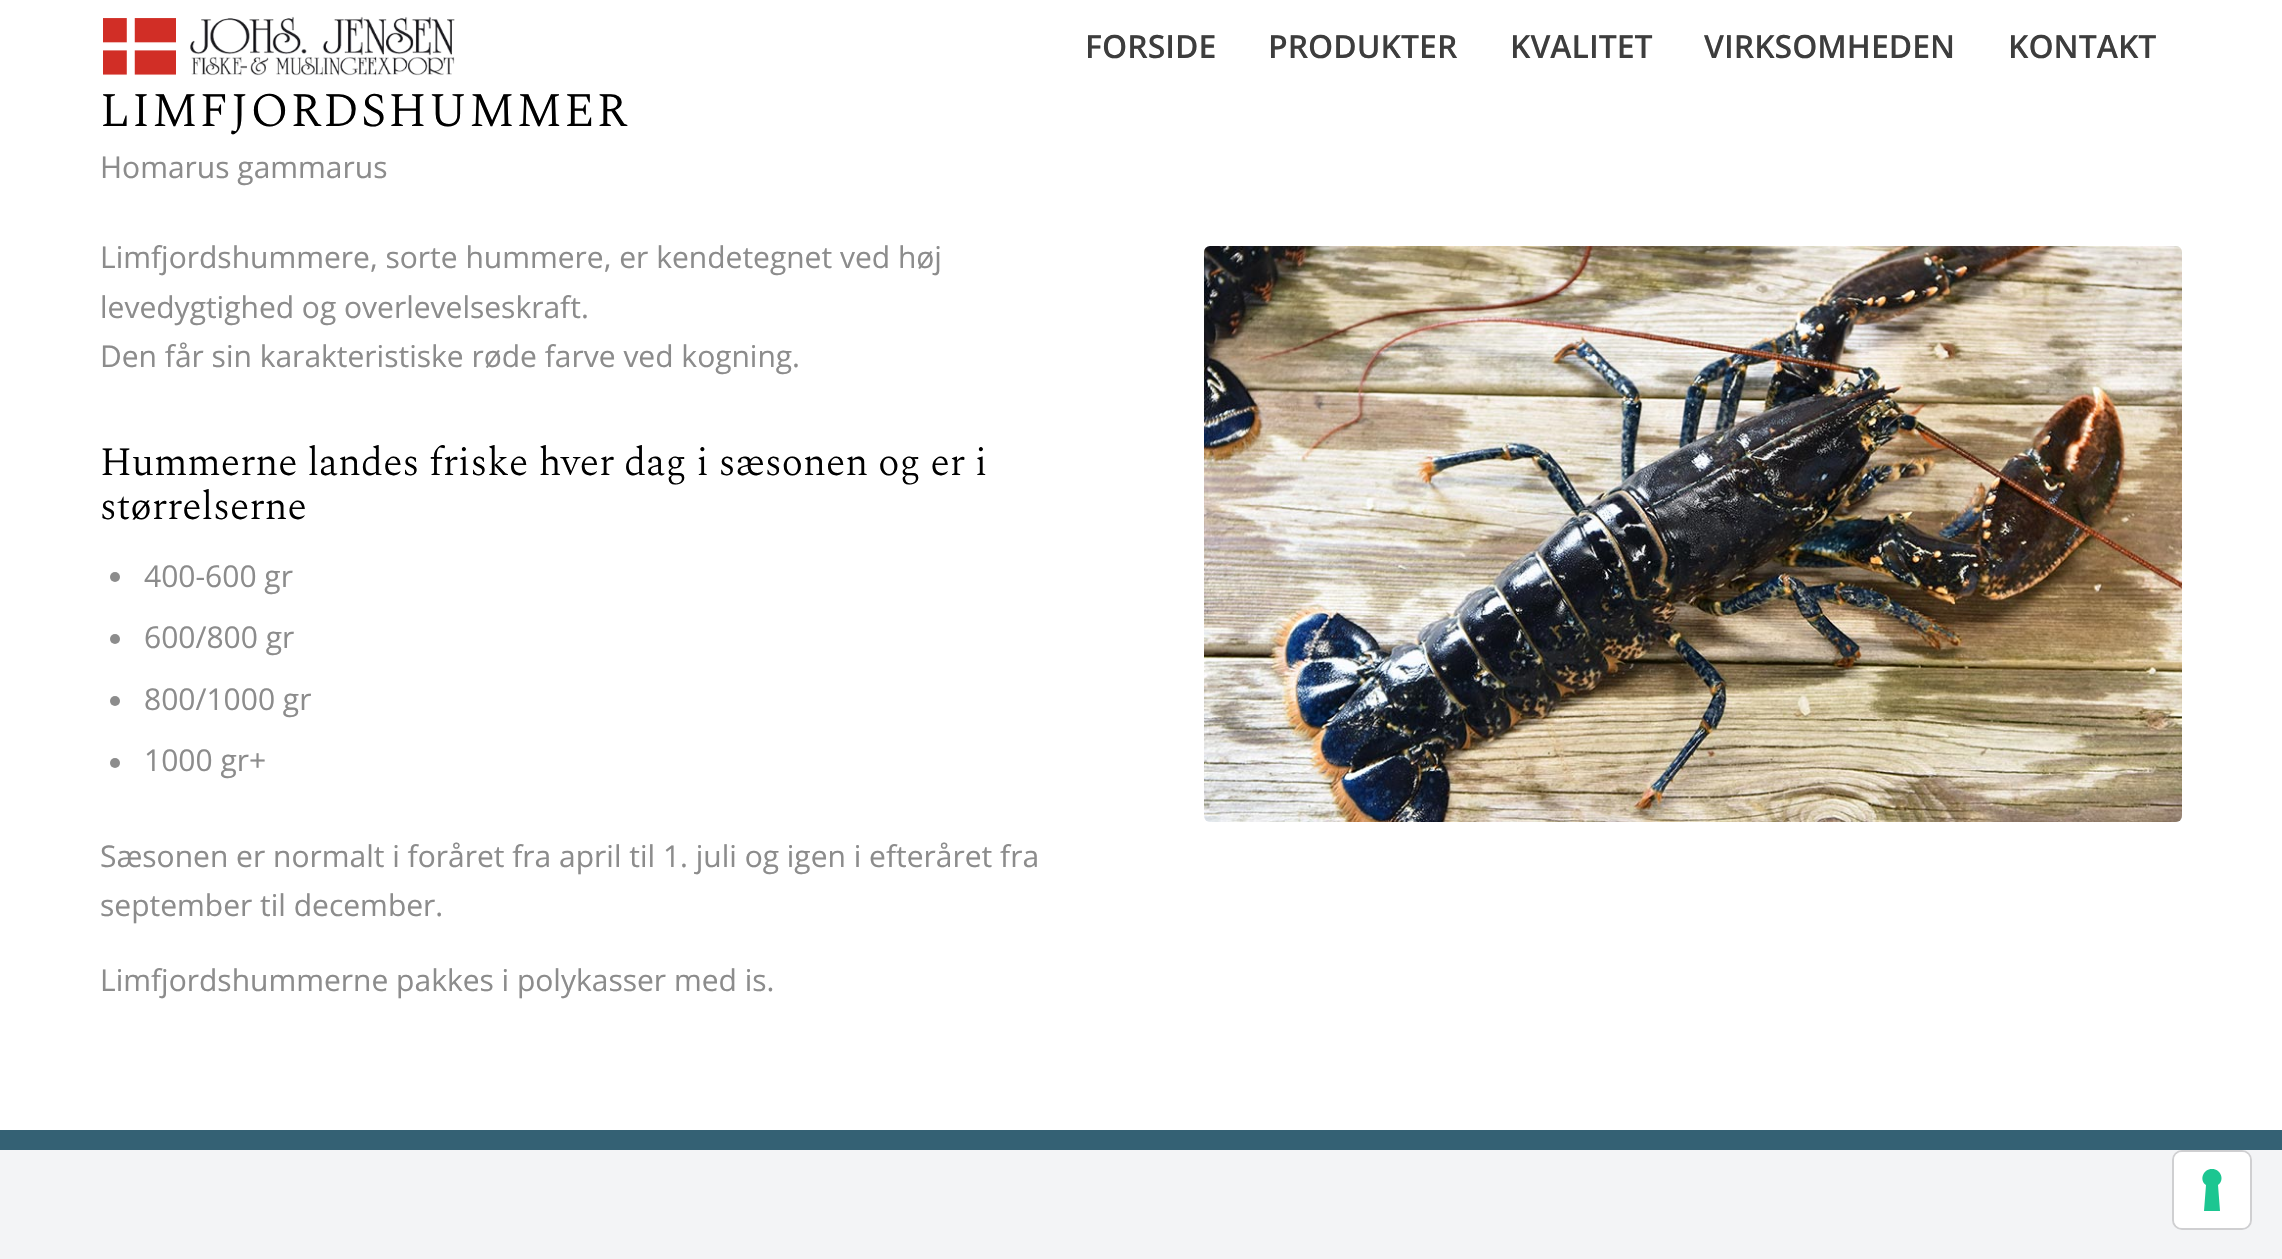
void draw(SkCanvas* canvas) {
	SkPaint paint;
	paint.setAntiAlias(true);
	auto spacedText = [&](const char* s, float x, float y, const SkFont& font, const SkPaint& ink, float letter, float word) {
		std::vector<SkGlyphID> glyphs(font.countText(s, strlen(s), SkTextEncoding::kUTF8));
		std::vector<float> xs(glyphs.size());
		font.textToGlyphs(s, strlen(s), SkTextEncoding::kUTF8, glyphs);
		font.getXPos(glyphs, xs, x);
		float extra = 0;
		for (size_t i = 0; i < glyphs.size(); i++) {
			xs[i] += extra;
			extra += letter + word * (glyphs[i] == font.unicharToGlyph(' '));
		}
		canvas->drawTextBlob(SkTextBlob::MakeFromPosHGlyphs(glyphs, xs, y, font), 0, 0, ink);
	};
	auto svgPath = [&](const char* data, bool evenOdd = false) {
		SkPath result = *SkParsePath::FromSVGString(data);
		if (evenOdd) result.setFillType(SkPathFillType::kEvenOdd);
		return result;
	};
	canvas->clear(0xffffffff);
	canvas->drawImageRect(SkImages::DeferredFromEncodedData(SkData::MakeFromFileName("img1.png")), SkRect::MakeXYWH(103, 16, 352, 60), SkSamplingOptions());
	SkFont f1(fontMgr->matchFamilyStyle("Open Sans", SkFontStyle(600, SkFontStyle::kNormal_Width, SkFontStyle::kUpright_Slant)), 32);
	f1.setSubpixel(true);
	paint.setColor(0xff3d3d3d);
	canvas->drawString("FORSIDE", 1085, 58, f1, paint);
	canvas->drawString("PRODUKTER", 1268, 58, f1, paint);
	canvas->drawString("KVALITET", 1510, 58, f1, paint);
	canvas->drawString("VIRKSOMHEDEN", 1704, 58, f1, paint);
	canvas->drawString("KONTAKT", 2008, 58, f1, paint);
	SkFont f2(fontMgr->matchFamilyStyle("Spectral", SkFontStyle(300, SkFontStyle::kNormal_Width, SkFontStyle::kUpright_Slant)), 48);
	f2.setSubpixel(true);
	paint.setColor(0xff000000);
	spacedText("LIMFJORDSHUMMER", 100, 126, f2, paint, 2, 0);
	SkFont f3(fontMgr->matchFamilyStyle("Open Sans", SkFontStyle::Normal()), 30);
	f3.setSubpixel(true);
	paint.setColor(0xff8c8c8c);
	canvas->drawString("Homarus gammarus", 100, 178, f3, paint);
	canvas->drawString("Limfjordshummere, sorte hummere, er kendetegnet ved høj", 100, 268, f3, paint);
	canvas->drawString("levedygtighed og overlevelseskraft.", 100, 318, f3, paint);
	canvas->drawString("Den får sin karakteristiske røde farve ved kogning.", 100, 367, f3, paint);
	SkFont f4(fontMgr->matchFamilyStyle("Spectral", SkFontStyle(300, SkFontStyle::kNormal_Width, SkFontStyle::kUpright_Slant)), 40);
	f4.setSubpixel(true);
	paint.setColor(0xff000000);
	canvas->drawString("Hummerne landes friske hver dag i sæsonen og er i", 100, 475, f4, paint);
	canvas->drawString("størrelserne", 100, 519, f4, paint);
	paint.setColor(0xff8c8c8c);
	canvas->drawCircle(115, 577, 5, paint);
	canvas->drawString("400-600 gr", 144, 587, f3, paint);
	canvas->drawCircle(115, 639, 5, paint);
	canvas->drawString("600/800 gr", 144, 648, f3, paint);
	canvas->drawCircle(115, 701, 5, paint);
	canvas->drawString("800/1000 gr", 144, 710, f3, paint);
	canvas->drawCircle(115, 763, 5, paint);
	canvas->drawString("1000 gr+", 144, 771, f3, paint);
	canvas->drawString("Sæsonen er normalt i foråret fra april til 1. juli og igen i efteråret fra", 100, 867, f3, paint);
	canvas->drawString("september til december.", 100, 916, f3, paint);
	canvas->drawString("Limfjordshummerne pakkes i polykasser med is.", 100, 991, f3, paint);
	canvas->drawImageRect(SkImages::DeferredFromEncodedData(SkData::MakeFromFileName("img2.png")), SkRect::MakeXYWH(1204, 246, 978, 576), SkSamplingOptions());
	paint.setColor(0xfff3f4f6);
	canvas->drawRect(SkRect::MakeXYWH(0, 1150, 2282, 109), paint);
	paint.setColor(0xff346174);
	canvas->drawRect(SkRect::MakeXYWH(0, 1130, 2282, 20), paint);
	paint.setStroke(true);
	paint.setStrokeWidth(2);
	paint.setColor(0xffcfcfd1);
	canvas->drawRoundRect(SkRect::MakeXYWH(2173, 1151, 78, 78), 9, 9, paint);
	paint.setStroke(false);
	paint.setColor(0xffffffff);
	canvas->drawRoundRect(SkRect::MakeXYWH(2174, 1152, 76, 76), 8, 8, paint);
	paint.setColor(0xff1cc691);
	canvas->drawPath(svgPath("M2212 1169C2221 1169 2225 1180 2218 1185L2220 1211H2204L2206 1185C2199 1180 2203 1169 2212 1169Z", true), paint);
}
